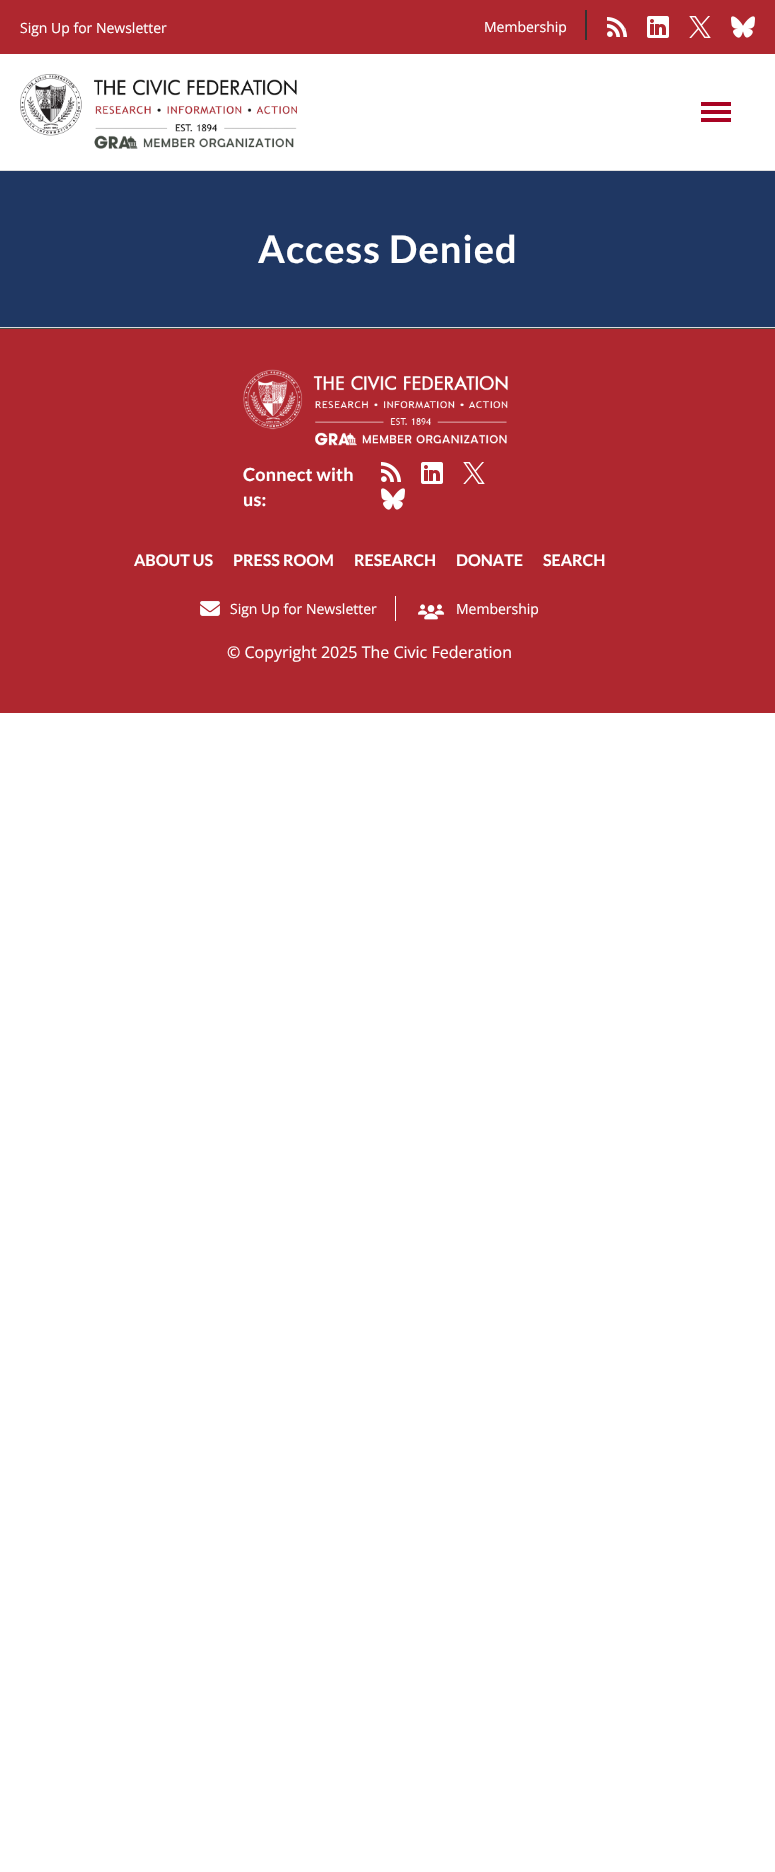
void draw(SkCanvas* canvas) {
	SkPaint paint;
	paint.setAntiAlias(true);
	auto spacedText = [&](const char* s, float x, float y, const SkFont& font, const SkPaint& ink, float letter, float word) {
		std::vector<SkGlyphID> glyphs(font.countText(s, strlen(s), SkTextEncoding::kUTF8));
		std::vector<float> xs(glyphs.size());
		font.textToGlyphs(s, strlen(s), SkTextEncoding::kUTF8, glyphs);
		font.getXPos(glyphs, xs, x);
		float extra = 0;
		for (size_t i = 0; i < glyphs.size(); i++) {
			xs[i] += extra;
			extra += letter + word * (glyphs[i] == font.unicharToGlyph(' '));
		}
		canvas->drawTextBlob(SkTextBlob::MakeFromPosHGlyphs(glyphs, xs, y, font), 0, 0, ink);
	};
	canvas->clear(0xffffffff);
	paint.setColor(0xffaf272f);
	canvas->drawRect(SkRect::MakeXYWH(0, 0, 775, 54), paint);
	SkFont f1(fontMgr->matchFamilyStyle("Open Sans", SkFontStyle::Normal()), 14);
	f1.setSubpixel(true);
	paint.setColor(0xffffffff);
	canvas->drawString("Sign Up for Newsletter", 20, 33, f1, paint);
	canvas->drawString("Membership", 484, 32, f1, paint);
	paint.setColor(0xff333333);
	canvas->drawRect(SkRect::MakeXYWH(585, 10, 2, 30), paint);
	canvas->drawImageRect(SkImages::DeferredFromEncodedData(SkData::MakeFromFileName("img1.png")), SkRect::MakeXYWH(607, 17, 20, 20), SkSamplingOptions());
	paint.setColor(0xffebc9cb);
	canvas->drawString(".", 623, 30, f1, paint);
	canvas->drawImageRect(SkImages::DeferredFromEncodedData(SkData::MakeFromFileName("img2.png")), SkRect::MakeXYWH(647, 16, 22, 22), SkSamplingOptions());
	canvas->drawImageRect(SkImages::DeferredFromEncodedData(SkData::MakeFromFileName("img3.png")), SkRect::MakeXYWH(689, 16, 22, 22), SkSamplingOptions());
	canvas->drawImageRect(SkImages::DeferredFromEncodedData(SkData::MakeFromFileName("img4.png")), SkRect::MakeXYWH(731, 16, 24, 22), SkSamplingOptions());
	canvas->drawImageRect(SkImages::DeferredFromEncodedData(SkData::MakeFromFileName("img5.png")), SkRect::MakeXYWH(20, 74, 277, 75), SkSamplingOptions());
	paint.setColor(0xffa80323);
	canvas->drawRect(SkRect::MakeXYWH(701, 102, 30, 4), paint);
	canvas->drawRect(SkRect::MakeXYWH(701, 110, 30, 4), paint);
	canvas->drawRect(SkRect::MakeXYWH(701, 118, 30, 4), paint);
	paint.setColor(0xff1f3763);
	canvas->drawRect(SkRect::MakeXYWH(0, 171, 775, 156), paint);
	paint.setColor(0xffdddddd);
	canvas->drawRect(SkRect::MakeXYWH(0, 170, 775, 1), paint);
	canvas->drawRect(SkRect::MakeXYWH(0, 327, 775, 1), paint);
	SkFont f2(fontMgr->matchFamilyStyle("Lato", SkFontStyle::Bold()), 38);
	f2.setSubpixel(true);
	paint.setColor(0xffffffff);
	spacedText("Access Denied", 258, 263, f2, paint, 1, 0);
	paint.setColor(0xffaf272f);
	canvas->drawRect(SkRect::MakeXYWH(0, 329, 775, 384), paint);
	paint.setColor(0xff434b43);
	canvas->drawRect(SkRect::MakeXYWH(0, 328, 775, 1), paint);
	canvas->drawImageRect(SkImages::DeferredFromEncodedData(SkData::MakeFromFileName("img6.png")), SkRect::MakeXYWH(243, 369, 265, 77), SkSamplingOptions());
	SkFont f3(fontMgr->matchFamilyStyle("Lato", SkFontStyle::Bold()), 18);
	f3.setSubpixel(true);
	paint.setColor(0xffffffff);
	spacedText("Connect with", 243, 481, f3, paint, 0.25, 0);
	spacedText("us:", 243, 506, f3, paint, 0.25, 0);
	canvas->drawImageRect(SkImages::DeferredFromEncodedData(SkData::MakeFromFileName("img1.png")), SkRect::MakeXYWH(381, 462, 20, 20), SkSamplingOptions());
	canvas->drawImageRect(SkImages::DeferredFromEncodedData(SkData::MakeFromFileName("img2.png")), SkRect::MakeXYWH(421, 462, 22, 22), SkSamplingOptions());
	canvas->drawImageRect(SkImages::DeferredFromEncodedData(SkData::MakeFromFileName("img3.png")), SkRect::MakeXYWH(463, 462, 22, 22), SkSamplingOptions());
	canvas->drawImageRect(SkImages::DeferredFromEncodedData(SkData::MakeFromFileName("img4.png")), SkRect::MakeXYWH(381, 488, 24, 22), SkSamplingOptions());
	SkFont f4(fontMgr->matchFamilyStyle("Lato", SkFontStyle::Bold()), 16);
	f4.setSubpixel(true);
	canvas->drawString("ABOUT US", 134, 566, f4, paint);
	canvas->drawString("PRESS ROOM", 233, 566, f4, paint);
	canvas->drawString("RESEARCH", 354, 566, f4, paint);
	canvas->drawString("DONATE", 456, 566, f4, paint);
	canvas->drawString("SEARCH", 543, 566, f4, paint);
	canvas->drawImageRect(SkImages::DeferredFromEncodedData(SkData::MakeFromFileName("img7.png")), SkRect::MakeXYWH(200, 601, 20, 15), SkSamplingOptions());
	canvas->drawString("Sign Up for Newsletter", 230, 614, f1, paint);
	canvas->drawRect(SkRect::MakeXYWH(395, 596, 1, 25), paint);
	canvas->drawImageRect(SkImages::DeferredFromEncodedData(SkData::MakeFromFileName("img8.png")), SkRect::MakeXYWH(418, 604, 27, 16), SkSamplingOptions());
	canvas->drawString("Membership", 456, 614, f1, paint);
	SkFont f5(fontMgr->matchFamilyStyle("Open Sans", SkFontStyle::Normal()), 16);
	f5.setSubpixel(true);
	canvas->drawString("© Copyright 2025 The Civic Federation", 227, 658, f5, paint);
}
